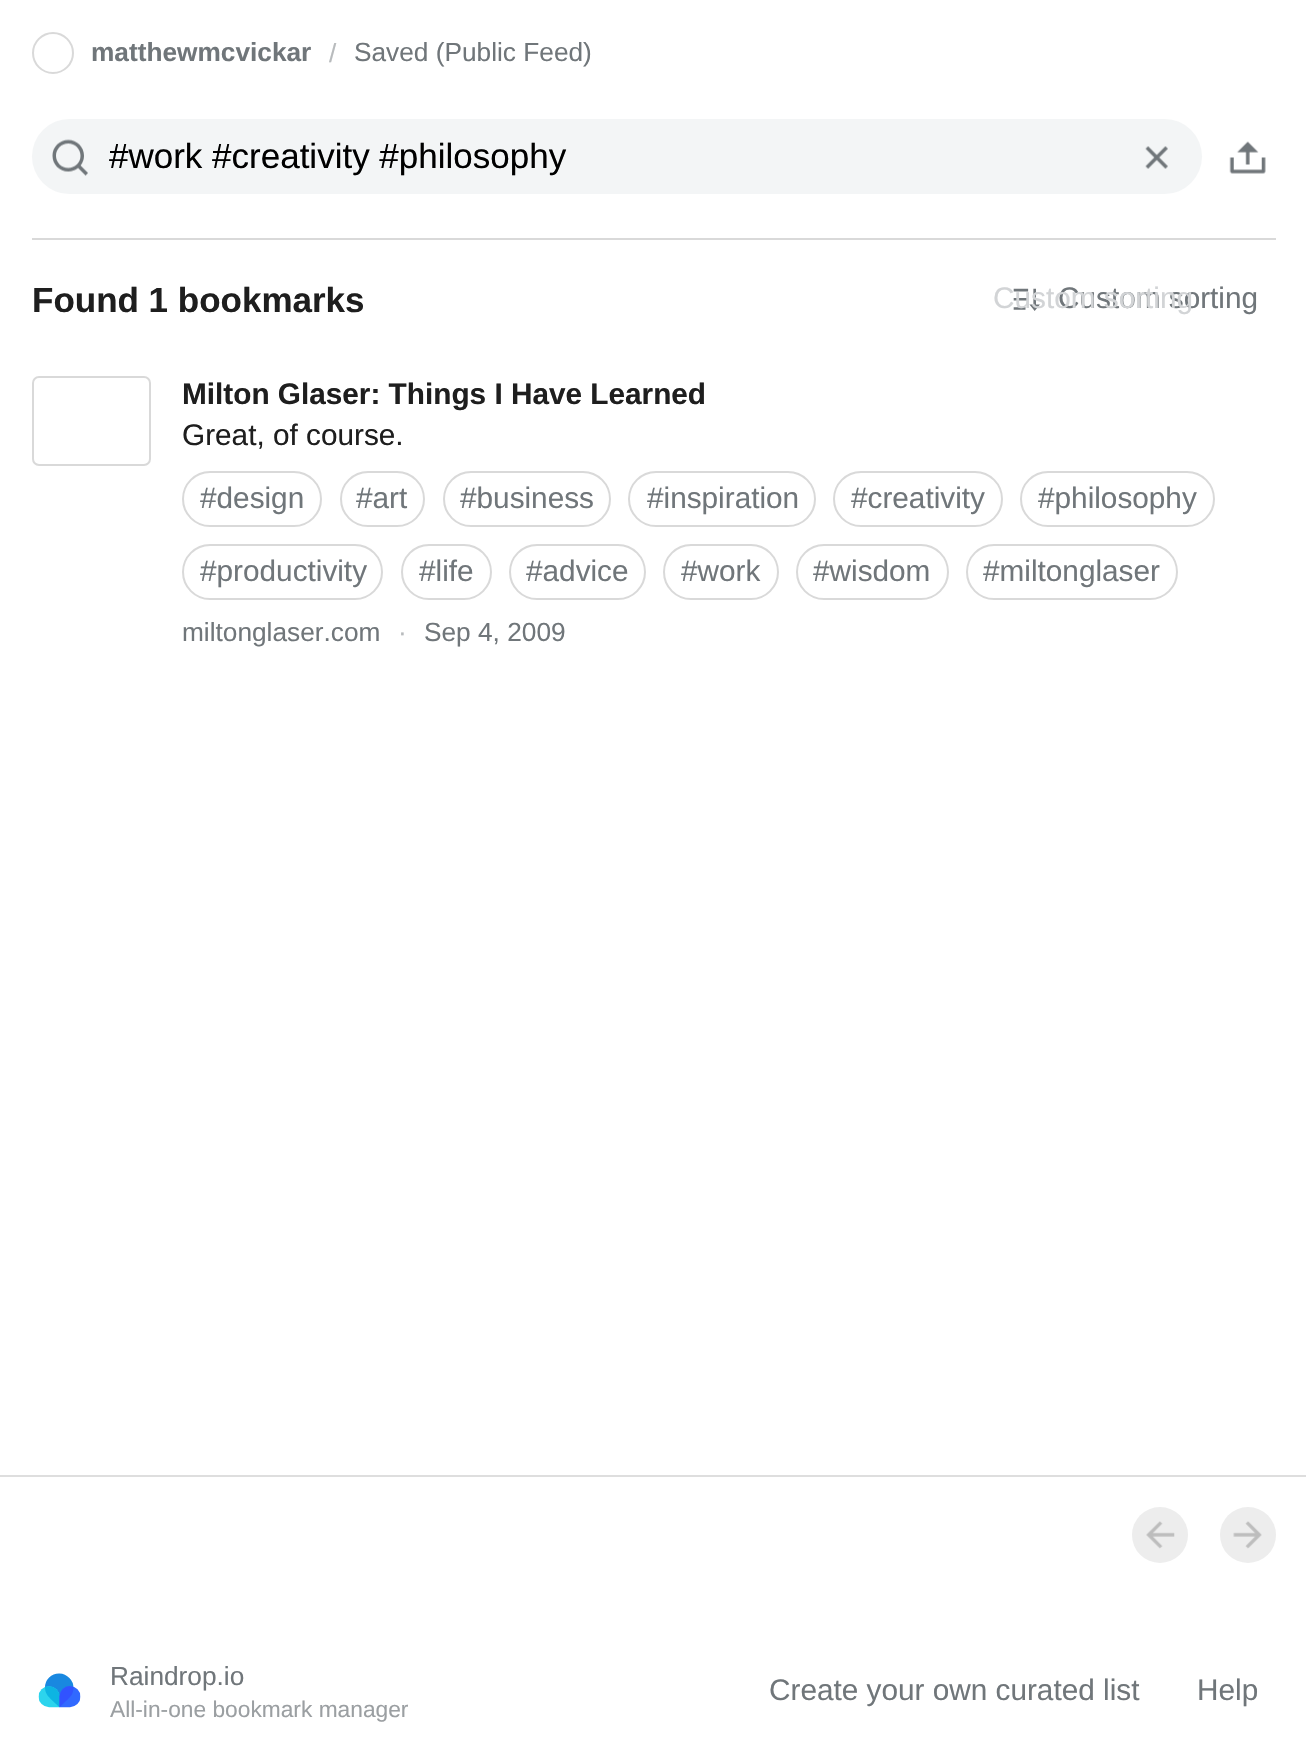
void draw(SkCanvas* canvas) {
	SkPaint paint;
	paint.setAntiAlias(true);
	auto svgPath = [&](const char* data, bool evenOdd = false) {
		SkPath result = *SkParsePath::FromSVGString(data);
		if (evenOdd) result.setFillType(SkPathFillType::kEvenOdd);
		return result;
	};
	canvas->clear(0xffffffff);
	paint.setStroke(true);
	paint.setStrokeWidth(2);
	paint.setColor(0xffd9d9d9);
	canvas->drawCircle(53, 53, 20, paint);
	SkFont f1(fontMgr->matchFamilyStyle("Liberation Sans", SkFontStyle::Bold()), 26.25);
	f1.setSubpixel(true);
	paint.setStroke(false);
	paint.setColor(0xff70767a);
	canvas->drawString("matthewmcvickar", 91, 61, f1, paint);
	SkFont f2(fontMgr->matchFamilyStyle("Liberation Sans", SkFontStyle::Normal()), 26.25);
	f2.setSubpixel(true);
	paint.setColor(0xffb8bbbd);
	canvas->drawString("/", 329, 62, f2, paint);
	paint.setColor(0xff70767a);
	canvas->drawString("Saved (Public Feed)", 354, 61, f2, paint);
	paint.setColor(0xfff3f5f6);
	canvas->drawRoundRect(SkRect::MakeXYWH(32, 119, 1170, 75), 37.5, 37.5, paint);
	canvas->drawImageRect(SkImages::DeferredFromEncodedData(SkData::MakeFromFileName("img1.png")), SkRect::MakeXYWH(52, 139, 36, 37), SkSamplingOptions());
	SkFont f3(fontMgr->matchFamilyStyle("Liberation Sans", SkFontStyle::Normal()), 35);
	f3.setSubpixel(true);
	paint.setColor(0xff000000);
	canvas->drawString("#work #creativity #philosophy", 109, 168, f3, paint);
	canvas->drawImageRect(SkImages::DeferredFromEncodedData(SkData::MakeFromFileName("img2.png")), SkRect::MakeXYWH(1145, 146, 23, 23), SkSamplingOptions());
	canvas->drawImageRect(SkImages::DeferredFromEncodedData(SkData::MakeFromFileName("img3.png")), SkRect::MakeXYWH(1229, 141, 37, 33), SkSamplingOptions());
	paint.setColor(0xffd9d9d9);
	canvas->drawPath(svgPath("M32 238V240H1276V343V238Z"), paint);
	SkFont f4(fontMgr->matchFamilyStyle("Liberation Sans", SkFontStyle::Bold()), 35);
	f4.setSubpixel(true);
	paint.setColor(0xff1e1e1e);
	canvas->drawString("Found 1 bookmarks", 32, 312, f4, paint);
	canvas->drawImageRect(SkImages::DeferredFromEncodedData(SkData::MakeFromFileName("img4.png")), SkRect::MakeXYWH(1013, 288, 27, 23), SkSamplingOptions());
	SkFont f5(fontMgr->matchFamilyStyle("Liberation Sans", SkFontStyle::Normal()), 29.75);
	f5.setSubpixel(true);
	paint.setColor(0xff70767a);
	canvas->drawString("Custom sorting", 1058, 308, f5, paint);
	paint.setColor(0xffd2d4d6);
	canvas->drawString("Custom sorting", 993, 308, f5, paint);
	paint.setStroke(true);
	paint.setColor(0xffd9d9d9);
	canvas->drawRoundRect(SkRect::MakeXYWH(33, 377, 117, 88), 6, 6, paint);
	SkFont f6(fontMgr->matchFamilyStyle("Liberation Sans", SkFontStyle::Bold()), 29.75);
	f6.setSubpixel(true);
	paint.setStroke(false);
	paint.setColor(0xff1e1e1e);
	canvas->drawString("Milton Glaser: Things I Have Learned", 182, 404, f6, paint);
	canvas->drawString("Great, of course.", 182, 445, f5, paint);
	paint.setStroke(true);
	paint.setColor(0xffd9d9d9);
	canvas->drawRoundRect(SkRect::MakeXYWH(183, 472, 138, 54), 27, 27, paint);
	paint.setStroke(false);
	paint.setColor(0xff70767a);
	canvas->drawString("#design", 200, 508, f5, paint);
	paint.setStroke(true);
	paint.setColor(0xffd9d9d9);
	canvas->drawRoundRect(SkRect::MakeXYWH(341, 472, 83, 54), 27, 27, paint);
	paint.setStroke(false);
	paint.setColor(0xff70767a);
	canvas->drawString("#art", 356, 508, f5, paint);
	paint.setStroke(true);
	paint.setColor(0xffd9d9d9);
	canvas->drawRoundRect(SkRect::MakeXYWH(444, 472, 166, 54), 27, 27, paint);
	paint.setStroke(false);
	paint.setColor(0xff70767a);
	canvas->drawString("#business", 460, 508, f5, paint);
	paint.setStroke(true);
	paint.setColor(0xffd9d9d9);
	canvas->drawRoundRect(SkRect::MakeXYWH(629, 472, 186, 54), 27, 27, paint);
	paint.setStroke(false);
	paint.setColor(0xff70767a);
	canvas->drawString("#inspiration", 647, 508, f5, paint);
	paint.setStroke(true);
	paint.setColor(0xffd9d9d9);
	canvas->drawRoundRect(SkRect::MakeXYWH(834, 472, 168, 54), 27, 27, paint);
	paint.setStroke(false);
	paint.setColor(0xff70767a);
	canvas->drawString("#creativity", 851, 508, f5, paint);
	paint.setStroke(true);
	paint.setColor(0xffd9d9d9);
	canvas->drawRoundRect(SkRect::MakeXYWH(1021, 472, 193, 54), 27, 27, paint);
	paint.setStroke(false);
	paint.setColor(0xff70767a);
	canvas->drawString("#philosophy", 1038, 508, f5, paint);
	paint.setStroke(true);
	paint.setColor(0xffd9d9d9);
	canvas->drawRoundRect(SkRect::MakeXYWH(183, 545, 199, 54), 27, 27, paint);
	paint.setStroke(false);
	paint.setColor(0xff70767a);
	canvas->drawString("#productivity", 200, 581, f5, paint);
	paint.setStroke(true);
	paint.setColor(0xffd9d9d9);
	canvas->drawRoundRect(SkRect::MakeXYWH(402, 545, 89, 54), 27, 27, paint);
	paint.setStroke(false);
	paint.setColor(0xff70767a);
	canvas->drawString("#life", 419, 581, f5, paint);
	paint.setStroke(true);
	paint.setColor(0xffd9d9d9);
	canvas->drawRoundRect(SkRect::MakeXYWH(510, 545, 135, 54), 27, 27, paint);
	paint.setStroke(false);
	paint.setColor(0xff70767a);
	canvas->drawString("#advice", 526, 581, f5, paint);
	paint.setStroke(true);
	paint.setColor(0xffd9d9d9);
	canvas->drawRoundRect(SkRect::MakeXYWH(664, 545, 114, 54), 27, 27, paint);
	paint.setStroke(false);
	paint.setColor(0xff70767a);
	canvas->drawString("#work", 681, 581, f5, paint);
	paint.setStroke(true);
	paint.setColor(0xffd9d9d9);
	canvas->drawRoundRect(SkRect::MakeXYWH(797, 545, 151, 54), 27, 27, paint);
	paint.setStroke(false);
	paint.setColor(0xff70767a);
	canvas->drawString("#wisdom", 813, 581, f5, paint);
	paint.setStroke(true);
	paint.setColor(0xffd9d9d9);
	canvas->drawRoundRect(SkRect::MakeXYWH(967, 545, 210, 54), 27, 27, paint);
	paint.setStroke(false);
	paint.setColor(0xff70767a);
	canvas->drawString("#miltonglaser", 983, 581, f5, paint);
	canvas->drawString("miltonglaser.com", 182, 641, f2, paint);
	paint.setColor(0xffb8bbbd);
	canvas->drawString("·", 398, 641, f2, paint);
	paint.setColor(0xff70767a);
	canvas->drawString("Sep 4, 2009", 424, 641, f2, paint);
	paint.setColor(0xffdedede);
	canvas->drawRect(SkRect::MakeXYWH(0, 1475, 1306, 2), paint);
	paint.setColor(0xffededed);
	canvas->drawCircle(1160, 1535, 28, paint);
	canvas->drawImageRect(SkImages::DeferredFromEncodedData(SkData::MakeFromFileName("img5.png")), SkRect::MakeXYWH(1146, 1521, 29, 28), SkSamplingOptions());
	canvas->drawCircle(1248, 1535, 28, paint);
	canvas->drawImageRect(SkImages::DeferredFromEncodedData(SkData::MakeFromFileName("img6.png")), SkRect::MakeXYWH(1233, 1521, 29, 28), SkSamplingOptions());
	canvas->drawImageRect(SkImages::DeferredFromEncodedData(SkData::MakeFromFileName("img7.png")), SkRect::MakeXYWH(38, 1673, 43, 35), SkSamplingOptions());
	paint.setColor(0xff70767a);
	canvas->drawString("Raindrop.io", 110, 1685, f2, paint);
	SkFont f7(fontMgr->matchFamilyStyle("Liberation Sans", SkFontStyle::Normal()), 22.75);
	f7.setSubpixel(true);
	paint.setColor(0xff9b9fa2);
	canvas->drawString("All-in-one bookmark manager", 110, 1717, f7, paint);
	paint.setColor(0xff70767a);
	canvas->drawString("Create your own curated list", 769, 1700, f5, paint);
	canvas->drawString("Help", 1197, 1700, f5, paint);
}
